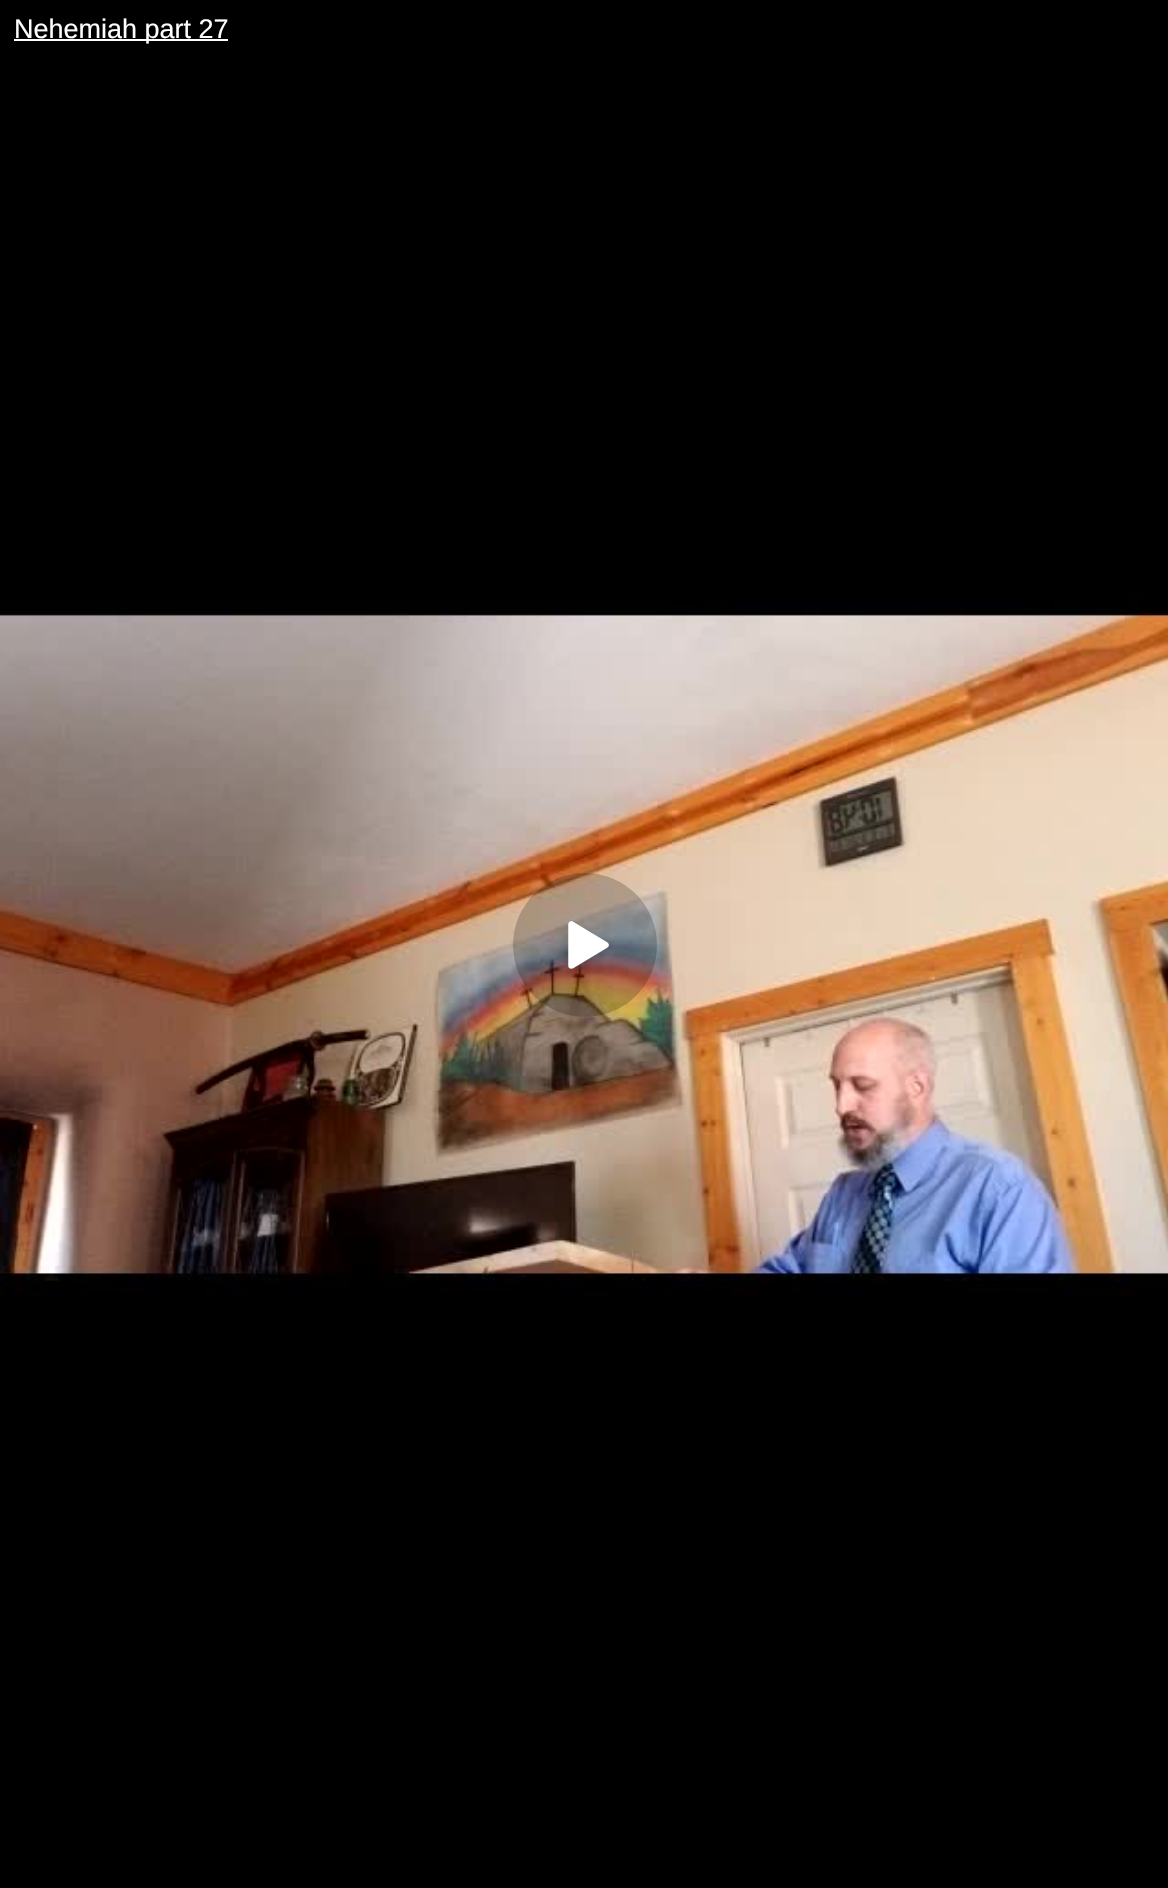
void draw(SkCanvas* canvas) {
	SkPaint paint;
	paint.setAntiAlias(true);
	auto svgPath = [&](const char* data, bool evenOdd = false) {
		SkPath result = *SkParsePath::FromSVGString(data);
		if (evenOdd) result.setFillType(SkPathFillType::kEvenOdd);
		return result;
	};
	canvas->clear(0xff000000);
	paint.setColor(0xffffffff);
	canvas->drawRect(SkRect::MakeXYWH(14, 39, 214, 2), paint);
	SkFont f1(fontMgr->matchFamilyStyle("Liberation Sans", SkFontStyle::Normal()), 27);
	f1.setSubpixel(true);
	canvas->drawString("Nehemiah part 27", 14, 38, f1, paint);
	canvas->drawImageRect(SkImages::DeferredFromEncodedData(SkData::MakeFromFileName("img1.png")), SkRect::MakeXYWH(0, 594, 1168, 702), SkSamplingOptions());
	paint.setColor(0x33000000);
	canvas->drawCircle(585, 945, 72, paint);
	paint.setColor(0xffffffff);
	canvas->drawPath(svgPath("M606 945L571 924V966Z"), paint);
	paint.setStroke(true);
	paint.setStrokeWidth(6.5);
	paint.setStrokeJoin(SkPaint::kRound_Join);
	canvas->drawPath(svgPath("M605.5 945L571.5 924.5V965.5Z"), paint);
}
